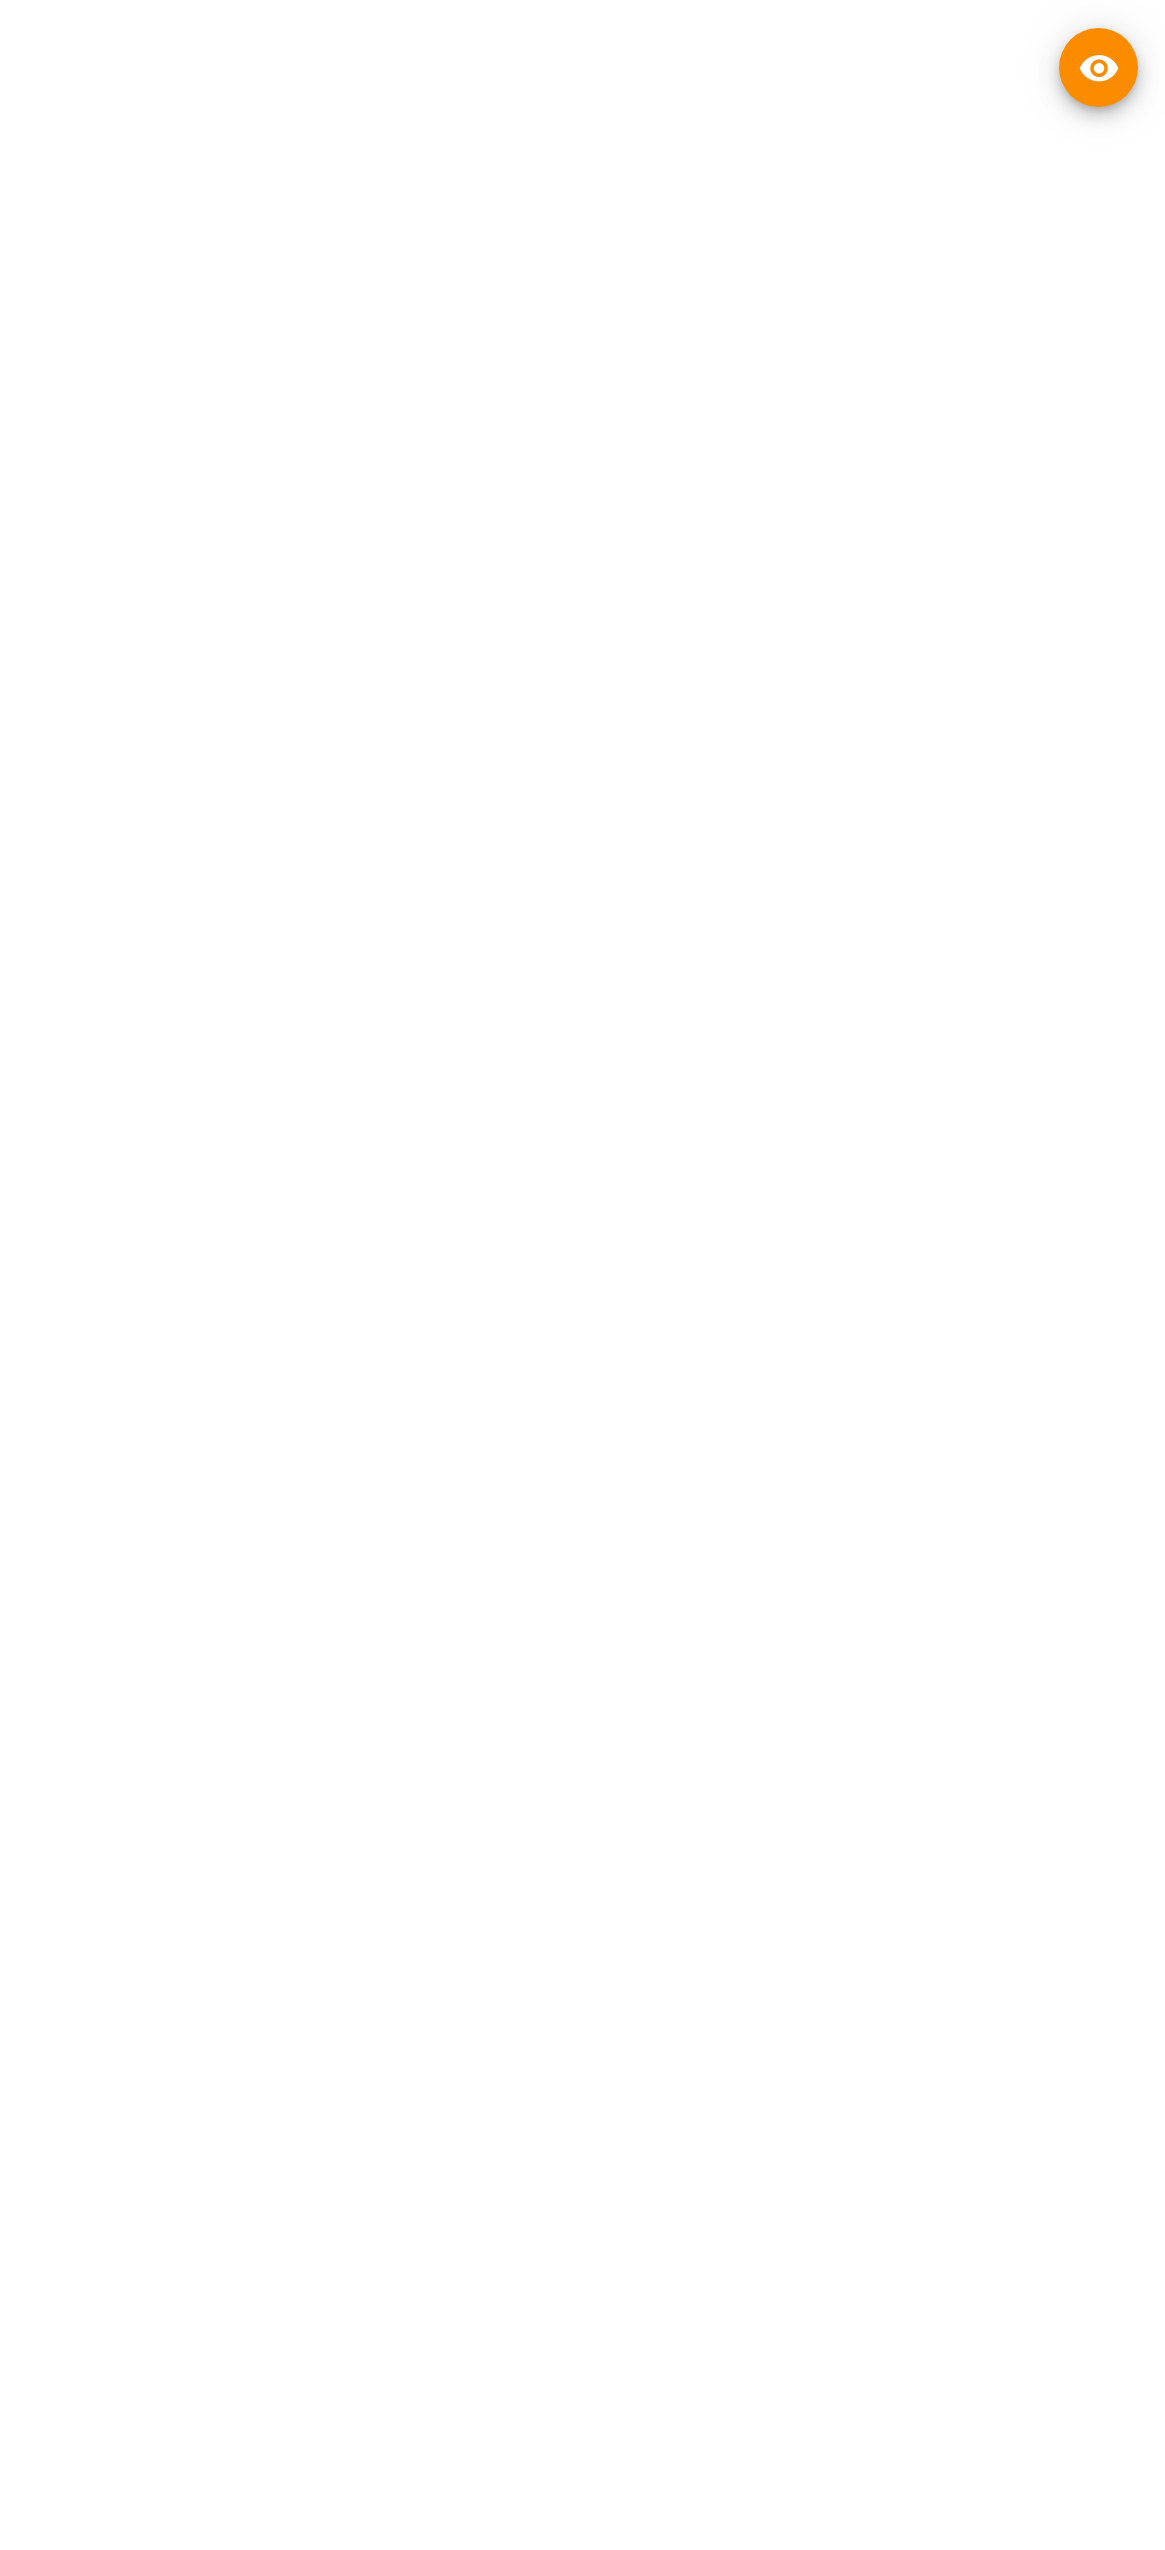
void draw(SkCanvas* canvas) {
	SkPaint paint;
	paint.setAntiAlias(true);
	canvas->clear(0xffffffff);
	paint.setColor(0x1f000000);
	paint.setMaskFilter(SkMaskFilter::MakeBlur(kNormal_SkBlurStyle, 16));
	canvas->drawRoundRect(SkRect::MakeXYWH(1059, 30, 79, 79), 39.5, 39.5, paint);
	paint.setMaskFilter(nullptr);
	paint.setColor(0x24000000);
	paint.setMaskFilter(SkMaskFilter::MakeBlur(kNormal_SkBlurStyle, 9));
	canvas->drawRoundRect(SkRect::MakeXYWH(1059, 39, 79, 78), 39, 39, paint);
	paint.setMaskFilter(nullptr);
	paint.setColor(0x33000000);
	paint.setMaskFilter(SkMaskFilter::MakeBlur(kNormal_SkBlurStyle, 4.5));
	canvas->drawRoundRect(SkRect::MakeXYWH(1061, 35, 75, 75), 37.5, 37.5, paint);
	paint.setMaskFilter(nullptr);
	paint.setColor(0xfffb8c00);
	canvas->drawCircle(1098.5, 67.5, 39.5, paint);
	canvas->drawImageRect(SkImages::DeferredFromEncodedData(SkData::MakeFromFileName("img1.png")), SkRect::MakeXYWH(1079, 55, 40, 27), SkSamplingOptions());
}
